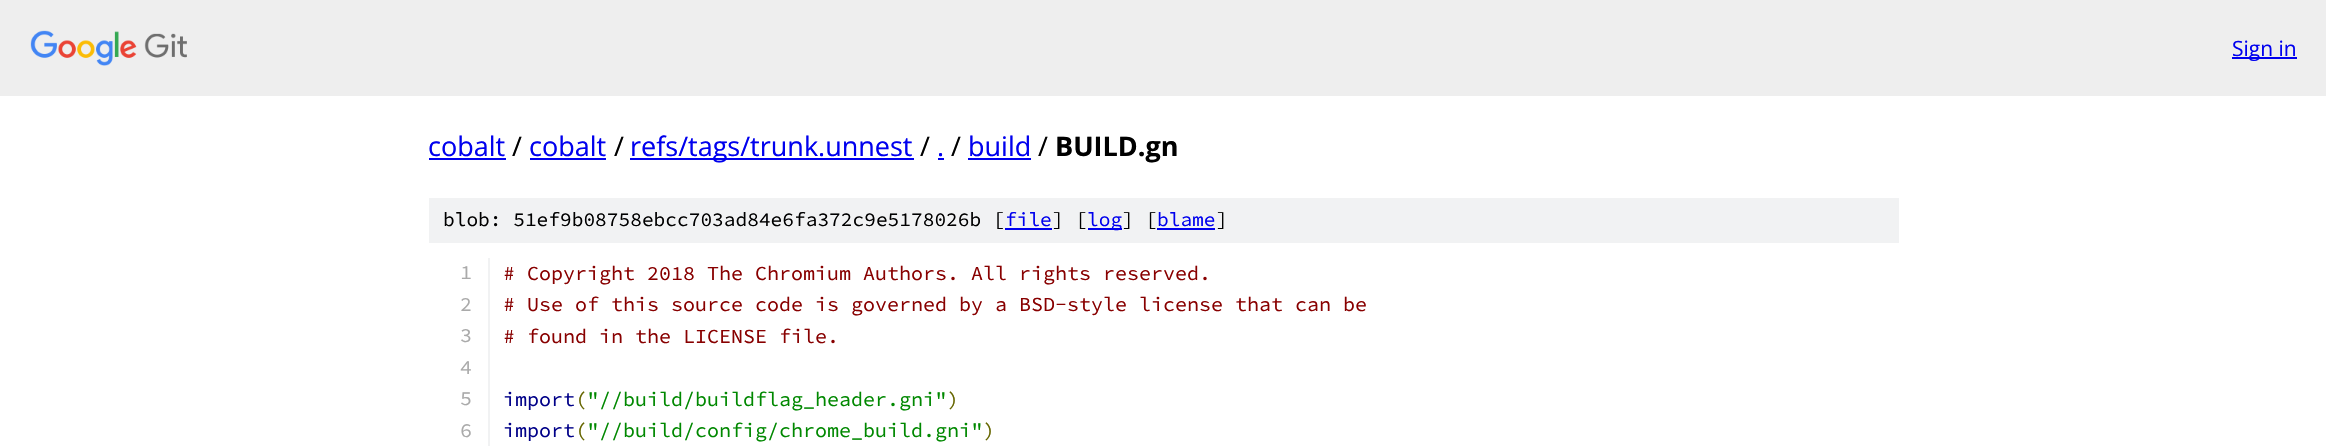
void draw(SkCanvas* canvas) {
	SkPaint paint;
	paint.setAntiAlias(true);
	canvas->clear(0xffffffff);
	paint.setColor(0xffeeeeee);
	canvas->drawRect(SkRect::MakeXYWH(0, 0, 2326, 96), paint);
	canvas->drawImageRect(SkImages::DeferredFromEncodedData(SkData::MakeFromFileName("img1.png")), SkRect::MakeXYWH(30, 30, 157, 36), SkSamplingOptions());
	paint.setColor(0xff0000ee);
	canvas->drawRect(SkRect::MakeXYWH(2232, 57, 65, 2), paint);
	SkFont f1(fontMgr->matchFamilyStyle("Open Sans", SkFontStyle::Normal()), 21);
	f1.setSubpixel(true);
	canvas->drawString("Sign in", 2232, 56, f1, paint);
	SkFont f2(fontMgr->matchFamilyStyle("Open Sans", SkFontStyle::Normal()), 27);
	f2.setSubpixel(true);
	canvas->drawString("cobalt", 428, 156, f2, paint);
	canvas->drawRect(SkRect::MakeXYWH(429, 158, 77, 2), paint);
	paint.setColor(0xff000000);
	canvas->drawString("/", 512, 156, f2, paint);
	paint.setColor(0xff0000ee);
	canvas->drawString("cobalt", 529, 156, f2, paint);
	canvas->drawRect(SkRect::MakeXYWH(530, 158, 76, 2), paint);
	paint.setColor(0xff000000);
	canvas->drawString("/", 614, 156, f2, paint);
	paint.setColor(0xff0000ee);
	canvas->drawRect(SkRect::MakeXYWH(630, 158, 284, 2), paint);
	canvas->drawString("refs/tags/trunk.unnest", 630, 156, f2, paint);
	paint.setColor(0xff000000);
	canvas->drawString("/", 920, 156, f2, paint);
	paint.setColor(0xff0000ee);
	canvas->drawString(".", 937, 156, f2, paint);
	canvas->drawRect(SkRect::MakeXYWH(938, 158, 6, 2), paint);
	paint.setColor(0xff000000);
	canvas->drawString("/", 951, 156, f2, paint);
	paint.setColor(0xff0000ee);
	canvas->drawString("build", 968, 156, f2, paint);
	canvas->drawRect(SkRect::MakeXYWH(968, 158, 63, 2), paint);
	paint.setColor(0xff000000);
	canvas->drawString("/", 1038, 156, f2, paint);
	SkFont f3(fontMgr->matchFamilyStyle("Open Sans", SkFontStyle::Bold()), 27);
	f3.setSubpixel(true);
	canvas->drawString("BUILD.gn", 1055, 156, f3, paint);
	paint.setColor(0xfff1f2f3);
	canvas->drawRect(SkRect::MakeXYWH(429, 198, 1470, 45), paint);
	SkFont f4(fontMgr->matchFamilyStyle("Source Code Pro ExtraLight", SkFontStyle(200, SkFontStyle::kNormal_Width, SkFontStyle::kUpright_Slant)), 19.5);
	f4.setSubpixel(true);
	paint.setColor(0xff000000);
	canvas->drawString("blob: 51ef9b08758ebcc703ad84e6fa372c9e5178026b [", 443, 226, f4, paint);
	paint.setColor(0xff0000ee);
	canvas->drawString("file", 1005, 226, f4, paint);
	canvas->drawRect(SkRect::MakeXYWH(1005, 228, 47, 2), paint);
	paint.setColor(0xff000000);
	canvas->drawString("] [", 1052, 226, f4, paint);
	paint.setColor(0xff0000ee);
	canvas->drawRect(SkRect::MakeXYWH(1088, 228, 34, 2), paint);
	canvas->drawString("log", 1087, 226, f4, paint);
	paint.setColor(0xff000000);
	canvas->drawString("] [", 1122, 226, f4, paint);
	paint.setColor(0xff0000ee);
	canvas->drawString("blame", 1157, 226, f4, paint);
	canvas->drawRect(SkRect::MakeXYWH(1157, 228, 58, 2), paint);
	paint.setColor(0xff000000);
	canvas->drawString("]", 1216, 226, f4, paint);
	paint.setColor(0xfff1f2f3);
	canvas->drawRect(SkRect::MakeXYWH(488, 258, 2, 188), paint);
	SkFont f5(fontMgr->matchFamilyStyle("Source Code Pro ExtraLight", SkFontStyle(200, SkFontStyle::kNormal_Width, SkFontStyle::kUpright_Slant)), 20);
	f5.setSubpixel(true);
	paint.setColor(0xffaaaaaa);
	canvas->drawString("1", 460, 279, f5, paint);
	paint.setColor(0xff880000);
	canvas->drawString("# Copyright 2018 The Chromium Authors. All rights reserved.", 503, 280, f5, paint);
	paint.setColor(0xffaaaaaa);
	canvas->drawString("2", 460, 311, f5, paint);
	paint.setColor(0xff880000);
	canvas->drawString("# Use of this source code is governed by a BSD-style license that can be", 503, 311, f5, paint);
	paint.setColor(0xffaaaaaa);
	canvas->drawString("3", 460, 342, f5, paint);
	paint.setColor(0xff880000);
	canvas->drawString("# found in the LICENSE file.", 503, 343, f5, paint);
	paint.setColor(0xffaaaaaa);
	canvas->drawString("4", 460, 374, f5, paint);
	canvas->drawString("5", 460, 405, f5, paint);
	paint.setColor(0xff000088);
	canvas->drawString("import", 503, 406, f5, paint);
	paint.setColor(0xff666600);
	canvas->drawString("(", 575, 406, f5, paint);
	paint.setColor(0xff008800);
	canvas->drawString("\"//build/buildflag_header.gni\"", 587, 406, f5, paint);
	paint.setColor(0xff666600);
	canvas->drawString(")", 947, 406, f5, paint);
	paint.setColor(0xffaaaaaa);
	canvas->drawString("6", 460, 437, f5, paint);
	paint.setColor(0xff000088);
	canvas->drawString("import", 503, 437, f5, paint);
	paint.setColor(0xff666600);
	canvas->drawString("(", 575, 437, f5, paint);
	paint.setColor(0xff008800);
	canvas->drawString("\"//build/config/chrome_build.gni\"", 587, 437, f5, paint);
	paint.setColor(0xff666600);
	canvas->drawString(")", 983, 437, f5, paint);
}
